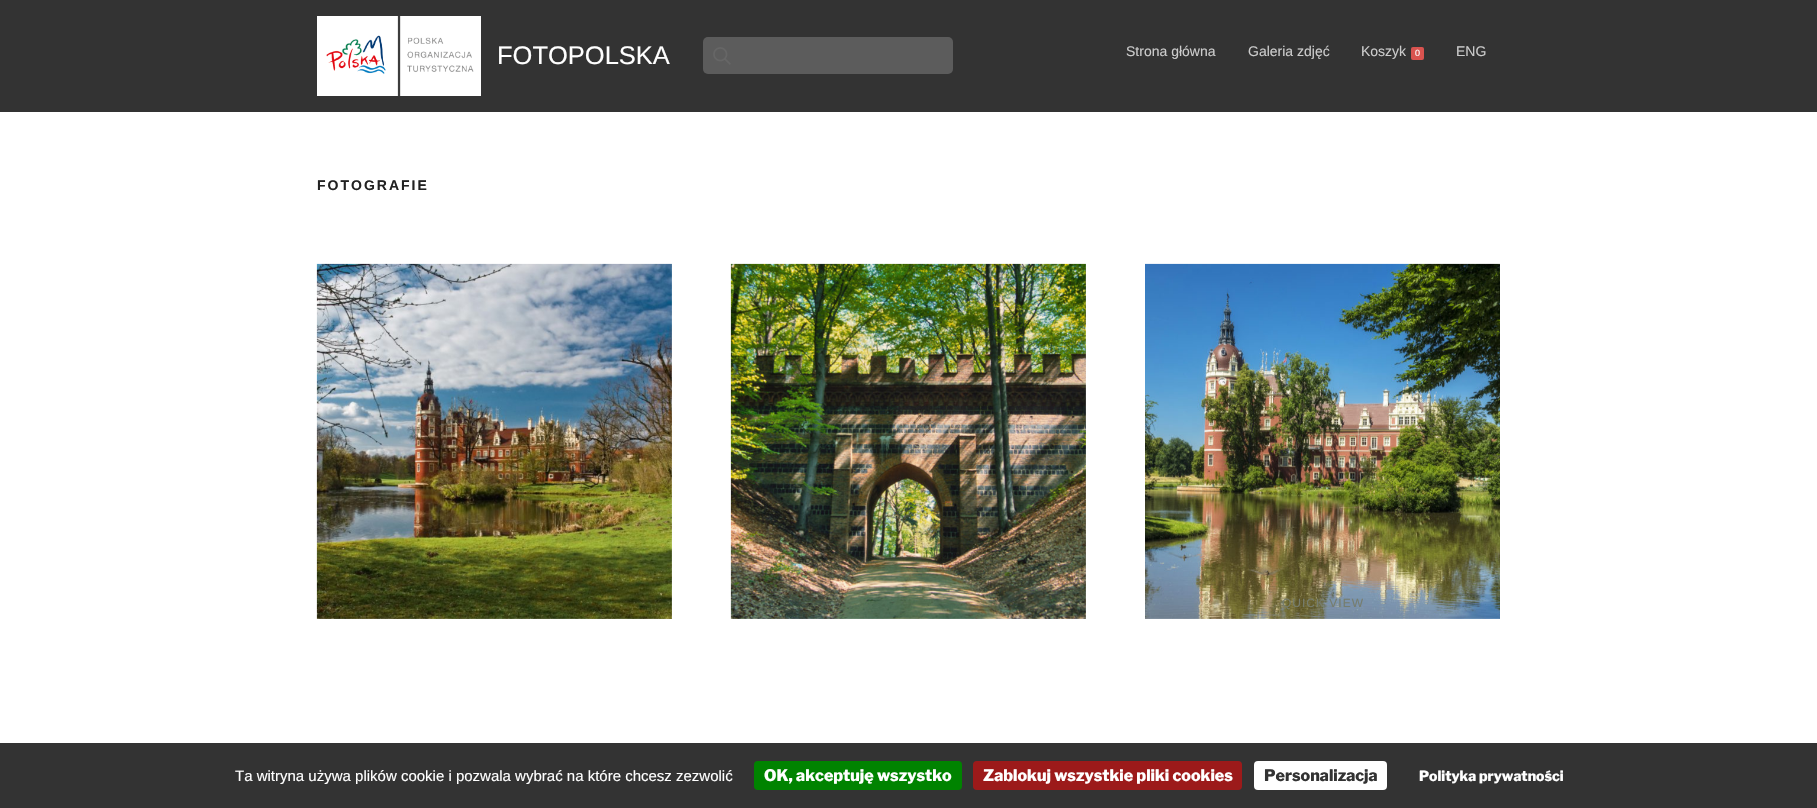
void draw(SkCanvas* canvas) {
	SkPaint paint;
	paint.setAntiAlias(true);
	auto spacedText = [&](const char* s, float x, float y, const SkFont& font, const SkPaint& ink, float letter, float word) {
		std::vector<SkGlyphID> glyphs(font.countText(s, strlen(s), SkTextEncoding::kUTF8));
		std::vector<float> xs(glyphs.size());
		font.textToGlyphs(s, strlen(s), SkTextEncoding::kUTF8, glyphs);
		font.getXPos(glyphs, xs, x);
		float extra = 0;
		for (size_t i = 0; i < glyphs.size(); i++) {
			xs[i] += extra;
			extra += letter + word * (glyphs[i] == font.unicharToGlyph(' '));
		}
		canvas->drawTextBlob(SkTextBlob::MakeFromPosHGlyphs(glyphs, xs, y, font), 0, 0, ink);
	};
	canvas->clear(0xffffffff);
	paint.setColor(0xff333333);
	canvas->drawRect(SkRect::MakeXYWH(0, 0, 1817, 112), paint);
	canvas->drawImageRect(SkImages::DeferredFromEncodedData(SkData::MakeFromFileName("img1.png")), SkRect::MakeXYWH(317, 16, 164, 80), SkSamplingOptions());
	SkFont f1(fontMgr->matchFamilyStyle("Liberation Sans", SkFontStyle::Normal()), 25.5);
	f1.setSubpixel(true);
	paint.setColor(0xffffffff);
	canvas->drawString("FOTOPOLSKA", 497, 64, f1, paint);
	paint.setColor(0xff5c5c5c);
	canvas->drawRoundRect(SkRect::MakeXYWH(703, 37, 250, 37), 5, 5, paint);
	canvas->drawImageRect(SkImages::DeferredFromEncodedData(SkData::MakeFromFileName("img2.png")), SkRect::MakeXYWH(713, 47, 18, 18), SkSamplingOptions());
	SkFont f2(fontMgr->matchFamilyStyle("Liberation Sans", SkFontStyle::Normal()), 14);
	f2.setSubpixel(true);
	paint.setColor(0xffcccccc);
	canvas->drawString("Strona główna", 1126, 56, f2, paint);
	canvas->drawString("Galeria zdjęć", 1248, 56, f2, paint);
	canvas->drawString("Koszyk", 1361, 56, f2, paint);
	paint.setColor(0xffd9534f);
	canvas->drawRoundRect(SkRect::MakeXYWH(1411, 47, 13, 13), 2, 2, paint);
	SkFont f3(fontMgr->matchFamilyStyle("Liberation Sans", SkFontStyle::Normal()), 9);
	f3.setSubpixel(true);
	paint.setColor(0xffffffff);
	canvas->drawString("0", 1415, 56, f3, paint);
	paint.setColor(0xffcccccc);
	canvas->drawString("ENG", 1456, 56, f2, paint);
	SkFont f4(fontMgr->matchFamilyStyle("Liberation Sans", SkFontStyle::Bold()), 14);
	f4.setSubpixel(true);
	paint.setColor(0xff222222);
	spacedText("FOTOGRAFIE", 317, 190, f4, paint, 2, 0);
	canvas->drawImageRect(SkImages::DeferredFromEncodedData(SkData::MakeFromFileName("img3.png")), SkRect::MakeXYWH(316, 263, 356, 356), SkSamplingOptions());
	canvas->drawImageRect(SkImages::DeferredFromEncodedData(SkData::MakeFromFileName("img4.png")), SkRect::MakeXYWH(730, 263, 356, 356), SkSamplingOptions());
	canvas->drawImageRect(SkImages::DeferredFromEncodedData(SkData::MakeFromFileName("img5.png")), SkRect::MakeXYWH(1145, 263, 355, 356), SkSamplingOptions());
	SkFont f5(fontMgr->matchFamilyStyle("Liberation Sans", SkFontStyle::Normal()), 12);
	f5.setSubpixel(true);
	paint.setColor(0xff767d6e);
	spacedText("QUICK VIEW", 1282, 607, f5, paint, 1, 0);
	paint.setColor(0xff333333);
	canvas->drawRect(SkRect::MakeXYWH(0, 743, 1817, 65), paint);
	canvas->save();
	canvas->clipRect(SkRect::MakeXYWH(225, 767, 518, 17));
	SkFont f6(fontMgr->matchFamilyStyle("Liberation Sans", SkFontStyle::Normal()), 15);
	f6.setSubpixel(true);
	paint.setColor(0xffffffff);
	canvas->drawString("Ta witryna używa plików cookie i pozwala wybrać na które chcesz zezwolić", 235, 781, f6, paint);
	canvas->restore();
	paint.setColor(0xff008300);
	canvas->drawRoundRect(SkRect::MakeXYWH(754, 761, 208, 29), 4, 4, paint);
	SkFont f7(fontMgr->matchFamilyStyle("Libre Franklin", SkFontStyle(800, SkFontStyle::kNormal_Width, SkFontStyle::kUpright_Slant)), 16);
	f7.setSubpixel(true);
	paint.setColor(0xffffffff);
	canvas->drawString("OK, akceptuję wszystko", 764, 781, f7, paint);
	paint.setColor(0xff9c1a1a);
	canvas->drawRoundRect(SkRect::MakeXYWH(973, 761, 269, 29), 4, 4, paint);
	paint.setColor(0xffffffff);
	canvas->drawString("Zablokuj wszystkie pliki cookies", 983, 781, f7, paint);
	canvas->drawRoundRect(SkRect::MakeXYWH(1254, 761, 133, 29), 4, 4, paint);
	paint.setColor(0xff333333);
	canvas->drawString("Personalizacja", 1264, 781, f7, paint);
	SkFont f8(fontMgr->matchFamilyStyle("Libre Franklin", SkFontStyle(800, SkFontStyle::kNormal_Width, SkFontStyle::kUpright_Slant)), 14);
	f8.setSubpixel(true);
	paint.setColor(0xffffffff);
	canvas->drawString("Polityka prywatności", 1419, 781, f8, paint);
}
